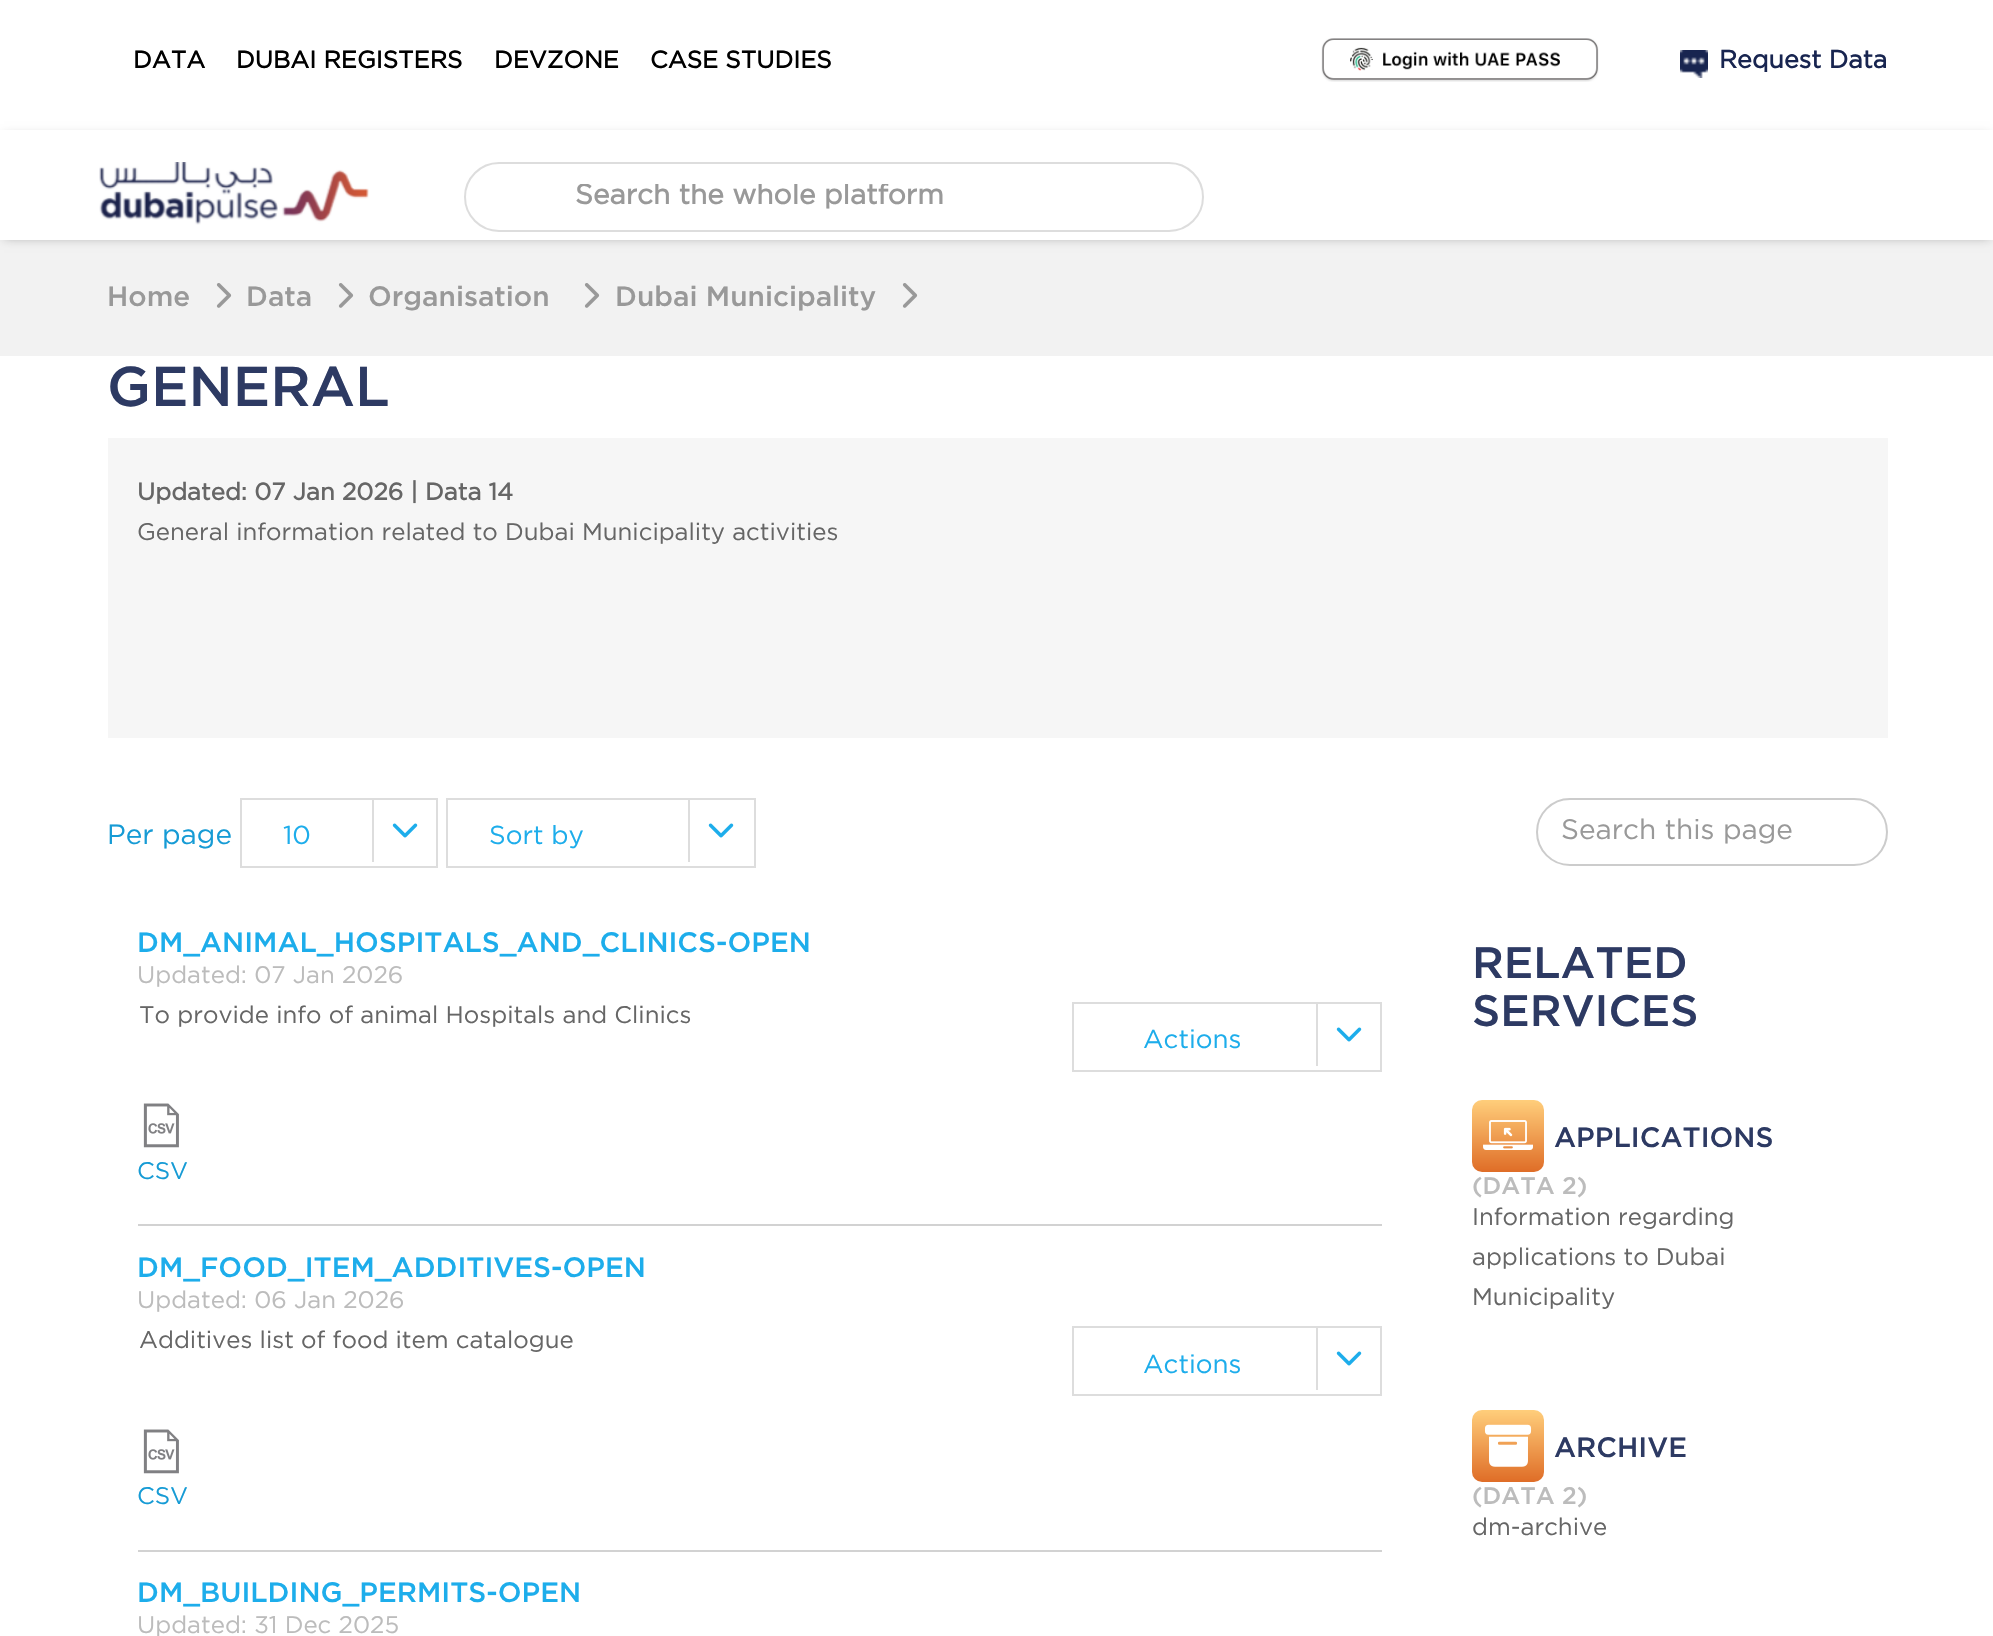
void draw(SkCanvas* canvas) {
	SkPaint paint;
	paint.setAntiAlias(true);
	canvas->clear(0xffffffff);
	SkFont f1(fontMgr->matchFamilyStyle("Gotham", SkFontStyle::Bold()), 24);
	f1.setSubpixel(true);
	paint.setColor(0xff000000);
	canvas->drawString("DATA", 133, 68, f1, paint);
	canvas->drawString("DUBAI REGISTERS", 236, 68, f1, paint);
	canvas->drawString("DEVZONE", 494, 68, f1, paint);
	canvas->drawString("CASE STUDIES", 650, 68, f1, paint);
	canvas->drawImageRect(SkImages::DeferredFromEncodedData(SkData::MakeFromFileName("img1.png")), SkRect::MakeXYWH(1321, 38, 278, 44), SkSamplingOptions());
	canvas->drawImageRect(SkImages::DeferredFromEncodedData(SkData::MakeFromFileName("img2.png")), SkRect::MakeXYWH(1680, 50, 28, 28), SkSamplingOptions());
	SkFont f2(fontMgr->matchFamilyStyle("Gotham", SkFontStyle::Bold()), 25);
	f2.setSubpixel(true);
	paint.setColor(0xff182550);
	canvas->drawString("Request Data", 1719, 68, f2, paint);
	paint.setColor(0xfff2f2f2);
	canvas->drawRect(SkRect::MakeXYWH(0, 240, 1993, 116), paint);
	paint.setColor(0x4d000000);
	paint.setMaskFilter(SkMaskFilter::MakeBlur(kNormal_SkBlurStyle, 5));
	canvas->drawRect(SkRect::MakeXYWH(4, 136, 1986, 102), paint);
	paint.setMaskFilter(nullptr);
	paint.setColor(0xffffffff);
	canvas->drawRect(SkRect::MakeXYWH(0, 130, 1993, 110), paint);
	canvas->drawImageRect(SkImages::DeferredFromEncodedData(SkData::MakeFromFileName("img3.png")), SkRect::MakeXYWH(99, 162, 270, 63), SkSamplingOptions());
	paint.setStroke(true);
	paint.setStrokeWidth(2);
	paint.setColor(0xffdddddd);
	canvas->drawRoundRect(SkRect::MakeXYWH(465, 163, 738, 68), 34, 34, paint);
	canvas->save();
	canvas->clipRect(SkRect::MakeXYWH(556, 184, 614, 26));
	SkFont f3(fontMgr->matchFamilyStyle("Gotham", SkFontStyle::Bold()), 28);
	f3.setSubpixel(true);
	paint.setStroke(false);
	paint.setColor(0xff999999);
	canvas->drawString("Search the whole platform", 575, 204, f3, paint);
	canvas->restore();
	SkFont f4(fontMgr->matchFamilyStyle("Gotham", SkFontStyle(500, SkFontStyle::kNormal_Width, SkFontStyle::kUpright_Slant)), 28);
	f4.setSubpixel(true);
	canvas->drawString("Home", 107, 306, f4, paint);
	canvas->drawImageRect(SkImages::DeferredFromEncodedData(SkData::MakeFromFileName("img4.png")), SkRect::MakeXYWH(216, 283, 16, 25), SkSamplingOptions());
	canvas->drawString("Data", 246, 306, f4, paint);
	canvas->drawImageRect(SkImages::DeferredFromEncodedData(SkData::MakeFromFileName("img4.png")), SkRect::MakeXYWH(338, 283, 16, 25), SkSamplingOptions());
	canvas->drawString("Organisation", 368, 306, f4, paint);
	canvas->drawImageRect(SkImages::DeferredFromEncodedData(SkData::MakeFromFileName("img4.png")), SkRect::MakeXYWH(584, 283, 16, 25), SkSamplingOptions());
	canvas->drawString("Dubai Municipality", 615, 306, f4, paint);
	canvas->drawImageRect(SkImages::DeferredFromEncodedData(SkData::MakeFromFileName("img4.png")), SkRect::MakeXYWH(902, 283, 16, 25), SkSamplingOptions());
	SkFont f5(fontMgr->matchFamilyStyle("Gotham", SkFontStyle(500, SkFontStyle::kNormal_Width, SkFontStyle::kUpright_Slant)), 56);
	f5.setSubpixel(true);
	paint.setColor(0xff2d3a63);
	canvas->drawString("GENERAL", 107, 406, f5, paint);
	paint.setColor(0xfff6f6f6);
	canvas->drawRect(SkRect::MakeXYWH(108, 438, 1780, 300), paint);
	paint.setColor(0xff666666);
	canvas->drawString("Updated: 07 Jan 2026 | Data 14", 137, 500, f1, paint);
	SkFont f6(fontMgr->matchFamilyStyle("Gotham", SkFontStyle::Normal()), 24);
	f6.setSubpixel(true);
	canvas->drawString("General information related to Dubai Municipality activities", 137, 540, f6, paint);
	SkFont f7(fontMgr->matchFamilyStyle("Gotham", SkFontStyle::Normal()), 28);
	f7.setSubpixel(true);
	paint.setColor(0xff169bd5);
	canvas->drawString("Per page", 107, 844, f7, paint);
	paint.setStroke(true);
	paint.setColor(0xffdddddd);
	canvas->drawRect(SkRect::MakeXYWH(241, 799, 196, 68), paint);
	SkFont f8(fontMgr->matchFamilyStyle("Gotham", SkFontStyle::Normal()), 26);
	f8.setSubpixel(true);
	paint.setStroke(false);
	paint.setColor(0xff1dadeb);
	canvas->drawString("10", 283, 844, f8, paint);
	paint.setColor(0xffdddddd);
	canvas->drawRect(SkRect::MakeXYWH(372, 800, 2, 62), paint);
	canvas->drawImageRect(SkImages::DeferredFromEncodedData(SkData::MakeFromFileName("img5.png")), SkRect::MakeXYWH(392, 823, 26, 15), SkSamplingOptions());
	paint.setStroke(true);
	canvas->drawRect(SkRect::MakeXYWH(447, 799, 308, 68), paint);
	paint.setStroke(false);
	paint.setColor(0xff1dadeb);
	canvas->drawString("Sort by", 489, 844, f8, paint);
	paint.setColor(0xffdddddd);
	canvas->drawRect(SkRect::MakeXYWH(688, 800, 2, 62), paint);
	canvas->drawImageRect(SkImages::DeferredFromEncodedData(SkData::MakeFromFileName("img5.png")), SkRect::MakeXYWH(708, 823, 26, 15), SkSamplingOptions());
	paint.setStroke(true);
	paint.setColor(0xffcccccc);
	canvas->drawRoundRect(SkRect::MakeXYWH(1537, 799, 350, 66), 33, 33, paint);
	paint.setStroke(false);
	paint.setColor(0xff999999);
	canvas->drawString("Search this page", 1561, 839, f7, paint);
	paint.setColor(0xffd2d2d2);
	canvas->drawRect(SkRect::MakeXYWH(138, 1224, 1244, 2), paint);
	paint.setColor(0xff1dadeb);
	canvas->drawString("DM_ANIMAL_HOSPITALS_AND_CLINICS-OPEN", 137, 952, f4, paint);
	paint.setColor(0xffbcbcbc);
	canvas->drawString("Updated: 07 Jan 2026", 137, 983, f6, paint);
	paint.setColor(0xff666666);
	canvas->drawString("To provide info of animal Hospitals and Clinics", 139, 1023, f6, paint);
	paint.setStroke(true);
	paint.setColor(0xffdddddd);
	canvas->drawRect(SkRect::MakeXYWH(1073, 1003, 308, 68), paint);
	paint.setStroke(false);
	paint.setColor(0xff1dadeb);
	canvas->drawString("Actions", 1143, 1048, f8, paint);
	paint.setColor(0xffdddddd);
	canvas->drawRect(SkRect::MakeXYWH(1316, 1004, 2, 62), paint);
	canvas->drawImageRect(SkImages::DeferredFromEncodedData(SkData::MakeFromFileName("img5.png")), SkRect::MakeXYWH(1336, 1027, 26, 15), SkSamplingOptions());
	canvas->drawImageRect(SkImages::DeferredFromEncodedData(SkData::MakeFromFileName("img6.png")), SkRect::MakeXYWH(143, 1103, 36, 45), SkSamplingOptions());
	paint.setColor(0xff169bd5);
	canvas->drawString("CSV", 137, 1179, f6, paint);
	paint.setColor(0xffd2d2d2);
	canvas->drawRect(SkRect::MakeXYWH(138, 1550, 1244, 2), paint);
	paint.setColor(0xff1dadeb);
	canvas->drawString("DM_FOOD_ITEM_ADDITIVES-OPEN", 137, 1277, f4, paint);
	paint.setColor(0xffbcbcbc);
	canvas->drawString("Updated: 06 Jan 2026", 137, 1308, f6, paint);
	paint.setColor(0xff666666);
	canvas->drawString("Additives list of food item catalogue", 139, 1348, f6, paint);
	paint.setStroke(true);
	paint.setColor(0xffdddddd);
	canvas->drawRect(SkRect::MakeXYWH(1073, 1327, 308, 68), paint);
	paint.setStroke(false);
	paint.setColor(0xff1dadeb);
	canvas->drawString("Actions", 1143, 1373, f8, paint);
	paint.setColor(0xffdddddd);
	canvas->drawRect(SkRect::MakeXYWH(1316, 1328, 2, 62), paint);
	canvas->drawImageRect(SkImages::DeferredFromEncodedData(SkData::MakeFromFileName("img5.png")), SkRect::MakeXYWH(1336, 1351, 26, 15), SkSamplingOptions());
	canvas->drawImageRect(SkImages::DeferredFromEncodedData(SkData::MakeFromFileName("img6.png")), SkRect::MakeXYWH(143, 1429, 36, 45), SkSamplingOptions());
	paint.setColor(0xff169bd5);
	canvas->drawString("CSV", 137, 1504, f6, paint);
	paint.setColor(0xff1dadeb);
	canvas->drawString("DM_BUILDING_PERMITS-OPEN", 137, 1602, f4, paint);
	paint.setColor(0xffbcbcbc);
	canvas->drawString("Updated: 31 Dec 2025", 137, 1633, f6, paint);
	SkFont f9(fontMgr->matchFamilyStyle("Gotham", SkFontStyle(500, SkFontStyle::kNormal_Width, SkFontStyle::kUpright_Slant)), 44);
	f9.setSubpixel(true);
	paint.setColor(0xff2d3a63);
	canvas->drawString("RELATED", 1472, 978, f9, paint);
	canvas->drawString("SERVICES", 1472, 1026, f9, paint);
	{
		const SkColor colors[] = {0xffffce7b, 0xffdf6d27};
		const float stops[] = {0, 1};
		const SkPoint ends[] = {{1508, 1100}, {1508, 1172}};
		paint.setShader(SkGradientShader::MakeLinear(ends, colors, stops, 2, SkTileMode::kClamp));
		paint.setAlpha(255);
	}
	canvas->drawRoundRect(SkRect::MakeXYWH(1472, 1100, 72, 72), 10, 10, paint);
	canvas->drawImageRect(SkImages::DeferredFromEncodedData(SkData::MakeFromFileName("img7.png")), SkRect::MakeXYWH(1483, 1120, 50, 30), SkSamplingOptions());
	paint.setShader(nullptr);
	paint.setColor(0xff2d3a63);
	canvas->drawString("APPLICATIONS", 1554, 1147, f4, paint);
	SkFont f10(fontMgr->matchFamilyStyle("Gotham", SkFontStyle(500, SkFontStyle::kNormal_Width, SkFontStyle::kUpright_Slant)), 24);
	f10.setSubpixel(true);
	paint.setColor(0xffbcbcbc);
	canvas->drawString("(DATA 2)", 1472, 1194, f10, paint);
	paint.setColor(0xff666666);
	canvas->drawString("Information regarding", 1472, 1225, f6, paint);
	canvas->drawString("applications to Dubai", 1472, 1265, f6, paint);
	canvas->drawString("Municipality", 1472, 1305, f6, paint);
	{
		const SkColor colors[] = {0xffffce7b, 0xffdf6d27};
		const float stops[] = {0, 1};
		const SkPoint ends[] = {{1508, 1410}, {1508, 1482}};
		paint.setShader(SkGradientShader::MakeLinear(ends, colors, stops, 2, SkTileMode::kClamp));
		paint.setAlpha(255);
	}
	canvas->drawRoundRect(SkRect::MakeXYWH(1472, 1410, 72, 72), 10, 10, paint);
	canvas->drawImageRect(SkImages::DeferredFromEncodedData(SkData::MakeFromFileName("img8.png")), SkRect::MakeXYWH(1484, 1424, 48, 43), SkSamplingOptions());
	paint.setShader(nullptr);
	paint.setColor(0xff2d3a63);
	canvas->drawString("ARCHIVE", 1554, 1457, f4, paint);
	paint.setColor(0xffbcbcbc);
	canvas->drawString("(DATA 2)", 1472, 1504, f10, paint);
	paint.setColor(0xff666666);
	canvas->drawString("dm-archive", 1472, 1535, f6, paint);
}
